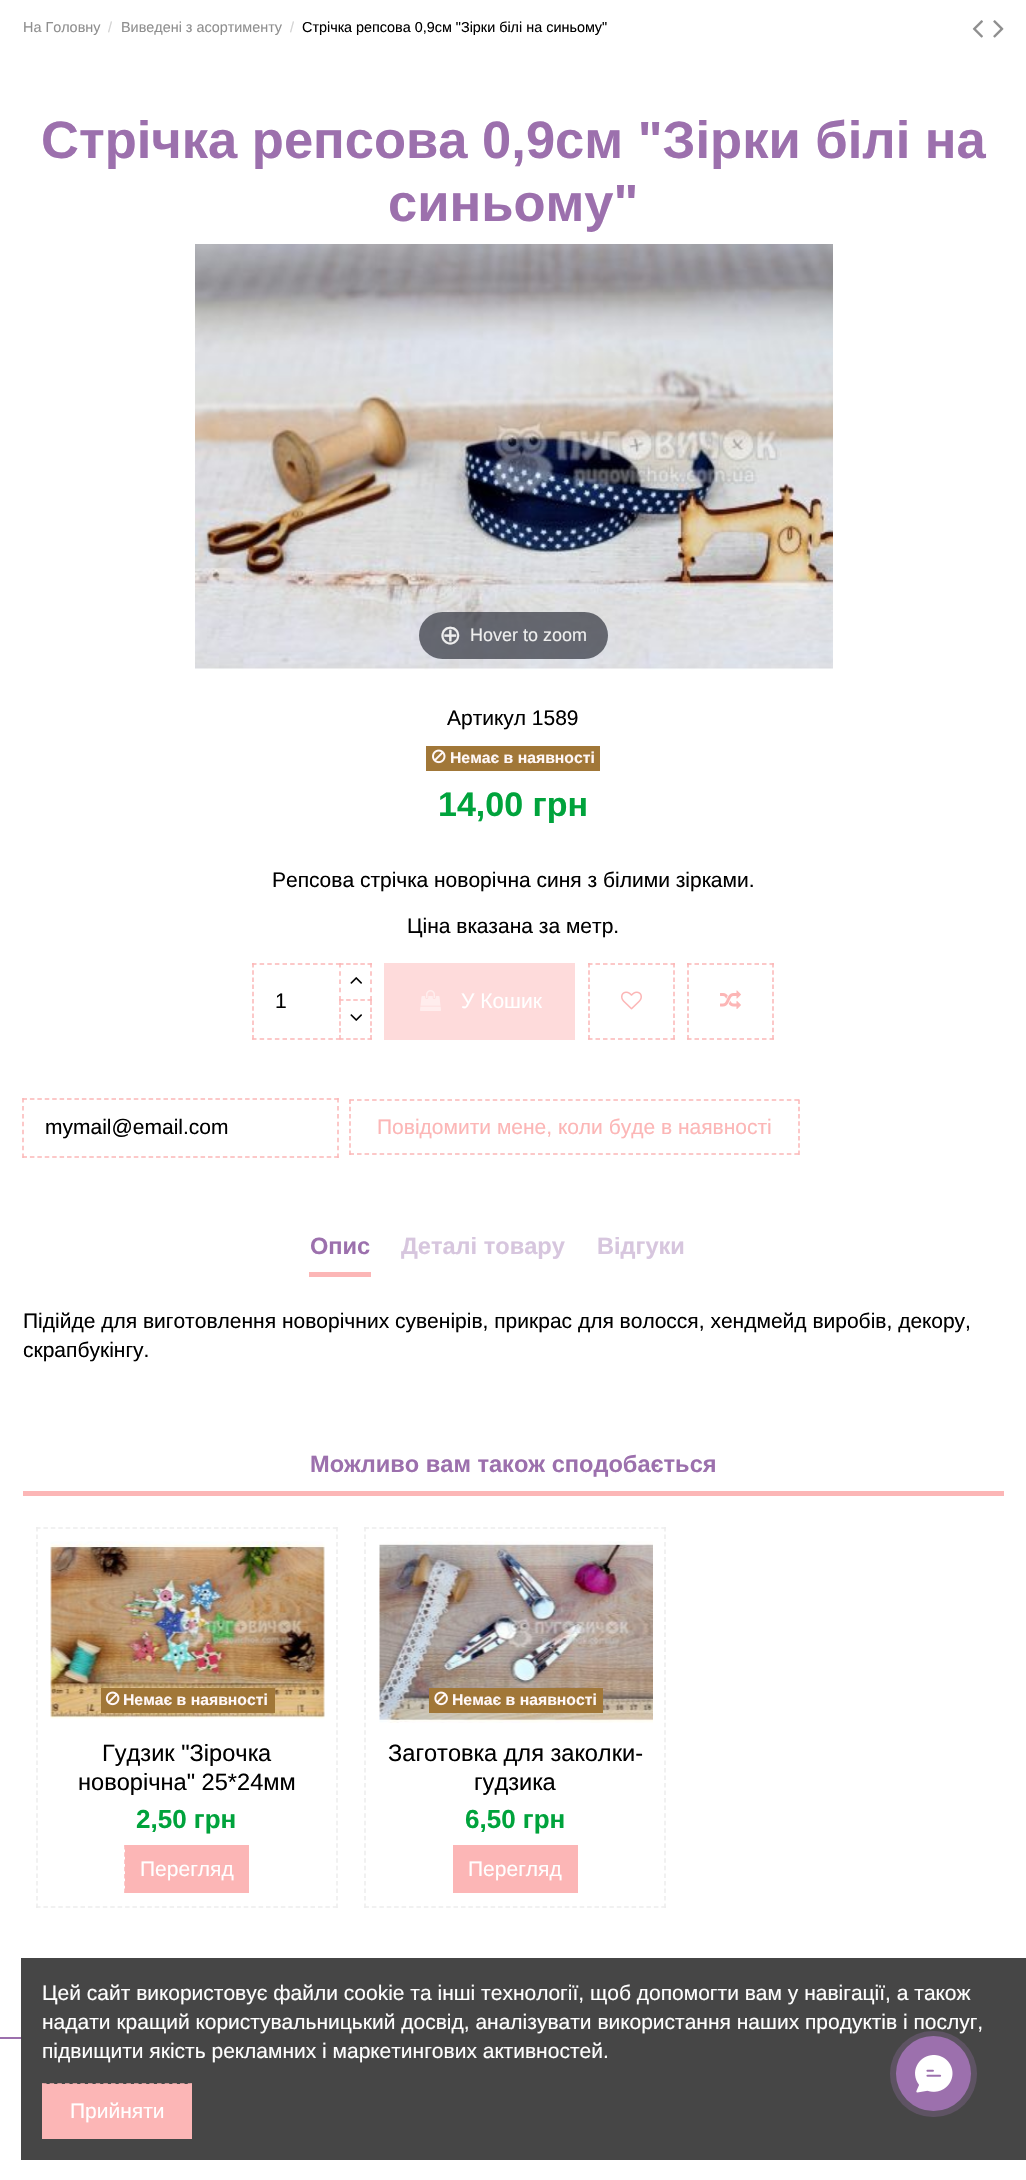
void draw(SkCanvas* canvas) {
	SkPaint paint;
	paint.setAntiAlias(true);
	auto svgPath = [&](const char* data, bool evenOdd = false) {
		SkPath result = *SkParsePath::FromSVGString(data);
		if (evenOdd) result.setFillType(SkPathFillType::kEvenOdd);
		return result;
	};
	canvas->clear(0xffffffff);
	SkFont f1(fontMgr->matchFamilyStyle("Liberation Sans", SkFontStyle::Normal()), 14.4);
	f1.setSubpixel(true);
	paint.setColor(0xff8f8f8f);
	canvas->drawString("На Головну", 23, 32, f1, paint);
	paint.setColor(0xffd2d2d2);
	canvas->drawString("/", 108, 32, f1, paint);
	paint.setColor(0xff8f8f8f);
	canvas->drawString("Виведені з асортименту", 121, 32, f1, paint);
	paint.setColor(0xffd2d2d2);
	canvas->drawString("/", 290, 32, f1, paint);
	paint.setColor(0xff000000);
	canvas->drawString("Стрічка репсова 0,9см \"Зірки білі на синьому\"", 302, 32, f1, paint);
	canvas->drawImageRect(SkImages::DeferredFromEncodedData(SkData::MakeFromFileName("img1.png")), SkRect::MakeXYWH(972, 20, 11, 18), SkSamplingOptions());
	canvas->drawImageRect(SkImages::DeferredFromEncodedData(SkData::MakeFromFileName("img2.png")), SkRect::MakeXYWH(993, 20, 11, 18), SkSamplingOptions());
	SkFont f2(fontMgr->matchFamilyStyle("Liberation Sans", SkFontStyle::Bold()), 52.5);
	f2.setSubpixel(true);
	paint.setColor(0xff9c70ad);
	canvas->drawString("Стрічка репсова 0,9см \"Зірки білі на", 41, 158, f2, paint);
	canvas->drawString("синьому\"", 388, 221, f2, paint);
	canvas->drawImageRect(SkImages::DeferredFromEncodedData(SkData::MakeFromFileName("img3.png")), SkRect::MakeXYWH(195, 244, 638, 426), SkSamplingOptions());
	paint.setColor(0xb331333d);
	canvas->drawRoundRect(SkRect::MakeXYWH(419, 612, 189, 47), 23.5, 23.5, paint);
	SkFont f3(fontMgr->matchFamilyStyle("DejaVu Sans", SkFontStyle::Normal()), 27);
	f3.setSubpixel(true);
	paint.setColor(0xffeeeeee);
	canvas->drawString("⊕", 439, 644, f3, paint);
	SkFont f4(fontMgr->matchFamilyStyle("Liberation Sans", SkFontStyle::Normal()), 18);
	f4.setSubpixel(true);
	canvas->drawString("Hover to zoom", 470, 641, f4, paint);
	SkFont f5(fontMgr->matchFamilyStyle("Liberation Sans", SkFontStyle::Normal()), 21);
	f5.setSubpixel(true);
	paint.setColor(0xff000000);
	canvas->drawString("Артикул 1589", 447, 725, f5, paint);
	paint.setColor(0xffa17738);
	canvas->drawRect(SkRect::MakeXYWH(426, 746, 174, 25), paint);
	canvas->drawImageRect(SkImages::DeferredFromEncodedData(SkData::MakeFromFileName("img4.png")), SkRect::MakeXYWH(432, 749, 14, 15), SkSamplingOptions());
	SkFont f6(fontMgr->matchFamilyStyle("Liberation Sans", SkFontStyle::Bold()), 15.75);
	f6.setSubpixel(true);
	paint.setColor(0xfffff7f7);
	canvas->drawString("Немає в наявності", 450, 763, f6, paint);
	SkFont f7(fontMgr->matchFamilyStyle("Liberation Sans", SkFontStyle::Bold()), 34);
	f7.setSubpixel(true);
	paint.setColor(0xff00a33c);
	canvas->drawString("14,00 грн", 438, 816, f7, paint);
	paint.setColor(0xff000000);
	canvas->drawString("Репсова стрічка новорічна синя з білими зірками.", 272, 887, f5, paint);
	canvas->drawString("Ціна вказана за метр.", 407, 933, f5, paint);
	paint.setStroke(true);
	paint.setStrokeWidth(1.5);
	paint.setColor(0xfffcb6b6);
	paint.setPathEffect(SkDashPathEffect::Make({{4.5f, 3.13f}}, 0));
	canvas->drawPath(svgPath("M252 964H340.5"), paint);
	paint.setPathEffect(nullptr);
	paint.setPathEffect(SkDashPathEffect::Make({{4.5f, 3.13f}}, 0));
	canvas->drawPath(svgPath("M252 1039H340.5"), paint);
	paint.setPathEffect(nullptr);
	paint.setPathEffect(SkDashPathEffect::Make({{4.5f, 2.7f}}, 0));
	canvas->drawPath(svgPath("M253 963V1039.5"), paint);
	paint.setPathEffect(nullptr);
	paint.setStroke(false);
	paint.setColor(0xff000000);
	canvas->drawString("1", 275, 1008, f5, paint);
	paint.setColor(0xffffffff);
	canvas->drawRect(SkRect::MakeXYWH(339, 963, 2, 2), paint);
	paint.setStroke(true);
	paint.setColor(0xfffcb6b6);
	paint.setPathEffect(SkDashPathEffect::Make({{4.5f, 2.62f}}, 0));
	canvas->drawPath(svgPath("M339 964H372"), paint);
	paint.setPathEffect(nullptr);
	paint.setPathEffect(SkDashPathEffect::Make({{4.5f, 3.75f}}, 0));
	canvas->drawPath(svgPath("M371 963V1000.5"), paint);
	paint.setPathEffect(nullptr);
	paint.setPathEffect(SkDashPathEffect::Make({{4.5f, 2.62f}}, 0));
	canvas->drawPath(svgPath("M339 1000H372"), paint);
	paint.setPathEffect(nullptr);
	paint.setPathEffect(SkDashPathEffect::Make({{4.5f, 3.75f}}, 0));
	canvas->drawPath(svgPath("M340 963V1000.5"), paint);
	paint.setPathEffect(nullptr);
	canvas->drawImageRect(SkImages::DeferredFromEncodedData(SkData::MakeFromFileName("img5.png")), SkRect::MakeXYWH(350, 977, 12, 7), SkSamplingOptions());
	paint.setStroke(false);
	paint.setColor(0xffffffff);
	canvas->drawRect(SkRect::MakeXYWH(339, 1038, 2, 2), paint);
	paint.setStroke(true);
	paint.setColor(0xfffcb6b6);
	paint.setPathEffect(SkDashPathEffect::Make({{4.5f, 2.4f}}, 0));
	canvas->drawPath(svgPath("M371 1000.5V1039.5"), paint);
	paint.setPathEffect(nullptr);
	paint.setPathEffect(SkDashPathEffect::Make({{4.5f, 2.62f}}, 0));
	canvas->drawPath(svgPath("M339 1039H372"), paint);
	paint.setPathEffect(nullptr);
	paint.setPathEffect(SkDashPathEffect::Make({{4.5f, 2.4f}}, 0));
	canvas->drawPath(svgPath("M340 1000.5V1039.5"), paint);
	paint.setPathEffect(nullptr);
	canvas->drawImageRect(SkImages::DeferredFromEncodedData(SkData::MakeFromFileName("img6.png")), SkRect::MakeXYWH(350, 1014, 12, 7), SkSamplingOptions());
	paint.setStroke(false);
	paint.setColor(0xfffedbdb);
	canvas->drawRect(SkRect::MakeXYWH(384, 963, 191, 77), paint);
	canvas->drawImageRect(SkImages::DeferredFromEncodedData(SkData::MakeFromFileName("img7.png")), SkRect::MakeXYWH(420, 990, 21, 21), SkSamplingOptions());
	paint.setColor(0xffffffff);
	canvas->drawString("У Кошик", 461, 1008, f5, paint);
	paint.setStroke(true);
	paint.setColor(0xfffcb6b6);
	paint.setPathEffect(SkDashPathEffect::Make({{4.5f, 3}}, 0));
	canvas->drawPath(svgPath("M588 964H675"), paint);
	paint.setPathEffect(nullptr);
	paint.setPathEffect(SkDashPathEffect::Make({{4.5f, 2.7f}}, 0));
	canvas->drawPath(svgPath("M674 963V1039.5"), paint);
	paint.setPathEffect(nullptr);
	paint.setPathEffect(SkDashPathEffect::Make({{4.5f, 3}}, 0));
	canvas->drawPath(svgPath("M588 1039H675"), paint);
	paint.setPathEffect(nullptr);
	paint.setPathEffect(SkDashPathEffect::Make({{4.5f, 2.7f}}, 0));
	canvas->drawPath(svgPath("M589 963V1039.5"), paint);
	paint.setPathEffect(nullptr);
	canvas->drawImageRect(SkImages::DeferredFromEncodedData(SkData::MakeFromFileName("img8.png")), SkRect::MakeXYWH(621, 991, 21, 19), SkSamplingOptions());
	paint.setPathEffect(SkDashPathEffect::Make({{4.5f, 3}}, 0));
	canvas->drawPath(svgPath("M687 964H774"), paint);
	paint.setPathEffect(nullptr);
	paint.setPathEffect(SkDashPathEffect::Make({{4.5f, 2.7f}}, 0));
	canvas->drawPath(svgPath("M773 963V1039.5"), paint);
	paint.setPathEffect(nullptr);
	paint.setPathEffect(SkDashPathEffect::Make({{4.5f, 3}}, 0));
	canvas->drawPath(svgPath("M687 1039H774"), paint);
	paint.setPathEffect(nullptr);
	paint.setPathEffect(SkDashPathEffect::Make({{4.5f, 2.7f}}, 0));
	canvas->drawPath(svgPath("M688 963V1039.5"), paint);
	paint.setPathEffect(nullptr);
	canvas->drawImageRect(SkImages::DeferredFromEncodedData(SkData::MakeFromFileName("img9.png")), SkRect::MakeXYWH(720, 990, 21, 19), SkSamplingOptions());
	paint.setPathEffect(SkDashPathEffect::Make({{4.5f, 2.92f}}, 0));
	canvas->drawPath(svgPath("M22.5 1099H339"), paint);
	paint.setPathEffect(nullptr);
	paint.setPathEffect(SkDashPathEffect::Make({{4.5f, 3.44f}}, 0));
	canvas->drawPath(svgPath("M338 1098V1158"), paint);
	paint.setPathEffect(nullptr);
	paint.setPathEffect(SkDashPathEffect::Make({{4.5f, 2.92f}}, 0));
	canvas->drawPath(svgPath("M22.5 1157H339"), paint);
	paint.setPathEffect(nullptr);
	paint.setPathEffect(SkDashPathEffect::Make({{4.5f, 3.44f}}, 0));
	canvas->drawPath(svgPath("M23 1098V1158"), paint);
	paint.setPathEffect(nullptr);
	paint.setStroke(false);
	paint.setColor(0xff000000);
	canvas->drawString("mymail@email.com", 45, 1134, f5, paint);
	paint.setStroke(true);
	paint.setColor(0xfffcb6b6);
	paint.setPathEffect(SkDashPathEffect::Make({{4.5f, 3.04f}}, 0));
	canvas->drawPath(svgPath("M349.5 1100H799.5"), paint);
	paint.setPathEffect(nullptr);
	paint.setPathEffect(SkDashPathEffect::Make({{4.5f, 2.79f}}, 0));
	canvas->drawPath(svgPath("M799 1099.5V1155"), paint);
	paint.setPathEffect(nullptr);
	paint.setPathEffect(SkDashPathEffect::Make({{4.5f, 3.04f}}, 0));
	canvas->drawPath(svgPath("M349.5 1154H799.5"), paint);
	paint.setPathEffect(nullptr);
	paint.setPathEffect(SkDashPathEffect::Make({{4.5f, 2.79f}}, 0));
	canvas->drawPath(svgPath("M350 1099.5V1155"), paint);
	paint.setPathEffect(nullptr);
	paint.setStroke(false);
	canvas->drawString("Повідомити мене, коли буде в наявності", 377, 1134, f5, paint);
	canvas->drawRect(SkRect::MakeXYWH(309, 1272, 62, 5), paint);
	SkFont f8(fontMgr->matchFamilyStyle("Liberation Sans", SkFontStyle::Bold()), 23.6);
	f8.setSubpixel(true);
	paint.setColor(0xff9c70ad);
	canvas->drawString("Опис", 310, 1254, f8, paint);
	paint.setColor(0xffd7c6de);
	canvas->drawString("Деталі товару", 401, 1254, f8, paint);
	canvas->drawString("Відгуки", 597, 1254, f8, paint);
	paint.setColor(0xff000000);
	canvas->drawString("Підійде для виготовлення новорічних сувенірів, прикрас для волосся, хендмейд виробів, декору,", 23, 1328, f5, paint);
	canvas->drawString("скрапбукінгу.", 23, 1357, f5, paint);
	paint.setColor(0xfffcb6b6);
	canvas->drawRect(SkRect::MakeXYWH(23, 1491, 981, 5), paint);
	paint.setColor(0xff9c70ad);
	canvas->drawString("Можливо вам також сподобається", 310, 1472, f8, paint);
	paint.setStroke(true);
	paint.setColor(0xffededed);
	paint.setPathEffect(SkDashPathEffect::Make({{4.5f, 2.92f}}, 0));
	canvas->drawPath(svgPath("M36 1528H337.5"), paint);
	paint.setPathEffect(nullptr);
	paint.setPathEffect(SkDashPathEffect::Make({{4.5f, 3.03f}}, 0));
	canvas->drawPath(svgPath("M337 1527V1908"), paint);
	paint.setPathEffect(nullptr);
	paint.setPathEffect(SkDashPathEffect::Make({{4.5f, 2.92f}}, 0));
	canvas->drawPath(svgPath("M36 1907H337.5"), paint);
	paint.setPathEffect(nullptr);
	paint.setPathEffect(SkDashPathEffect::Make({{4.5f, 3.03f}}, 0));
	canvas->drawPath(svgPath("M37 1527V1908"), paint);
	paint.setPathEffect(nullptr);
	canvas->drawImageRect(SkImages::DeferredFromEncodedData(SkData::MakeFromFileName("img10.png")), SkRect::MakeXYWH(50, 1541, 275, 178), SkSamplingOptions());
	paint.setStroke(false);
	paint.setColor(0xffa17738);
	canvas->drawRect(SkRect::MakeXYWH(101, 1688, 174, 25), paint);
	canvas->drawImageRect(SkImages::DeferredFromEncodedData(SkData::MakeFromFileName("img11.png")), SkRect::MakeXYWH(105, 1691, 15, 15), SkSamplingOptions());
	paint.setColor(0xfffff7f7);
	canvas->drawString("Немає в наявності", 123, 1705, f6, paint);
	SkFont f9(fontMgr->matchFamilyStyle("Liberation Sans", SkFontStyle::Normal()), 23.6);
	f9.setSubpixel(true);
	paint.setColor(0xff000000);
	canvas->drawString("Гудзик \"Зірочка", 102, 1761, f9, paint);
	canvas->drawString("новорічна\" 25*24мм", 78, 1790, f9, paint);
	SkFont f10(fontMgr->matchFamilyStyle("Liberation Sans", SkFontStyle::Bold()), 26);
	f10.setSubpixel(true);
	paint.setColor(0xff00a33c);
	canvas->drawString("2,50 грн", 136, 1828, f10, paint);
	paint.setColor(0xfffcb6b6);
	canvas->drawRect(SkRect::MakeXYWH(125, 1845, 124, 48), paint);
	paint.setStroke(true);
	paint.setPathEffect(SkDashPathEffect::Make({{4.5f, 3}}, 0));
	canvas->drawPath(svgPath("M124.5 1846H249"), paint);
	paint.setPathEffect(nullptr);
	paint.setPathEffect(SkDashPathEffect::Make({{4.5f, 3}}, 0));
	canvas->drawPath(svgPath("M124.5 1892H249"), paint);
	paint.setPathEffect(nullptr);
	paint.setPathEffect(SkDashPathEffect::Make({{4.5f, 2.75f}}, 0));
	canvas->drawPath(svgPath("M125 1845V1893"), paint);
	paint.setPathEffect(nullptr);
	paint.setStroke(false);
	paint.setColor(0xffffffff);
	canvas->drawString("Перегляд", 140, 1876, f5, paint);
	paint.setStroke(true);
	paint.setColor(0xffededed);
	paint.setPathEffect(SkDashPathEffect::Make({{4.5f, 2.92f}}, 0));
	canvas->drawPath(svgPath("M364.5 1528H666"), paint);
	paint.setPathEffect(nullptr);
	paint.setPathEffect(SkDashPathEffect::Make({{4.5f, 3.03f}}, 0));
	canvas->drawPath(svgPath("M665 1527V1908"), paint);
	paint.setPathEffect(nullptr);
	paint.setPathEffect(SkDashPathEffect::Make({{4.5f, 2.92f}}, 0));
	canvas->drawPath(svgPath("M364.5 1907H666"), paint);
	paint.setPathEffect(nullptr);
	paint.setPathEffect(SkDashPathEffect::Make({{4.5f, 3.03f}}, 0));
	canvas->drawPath(svgPath("M365 1527V1908"), paint);
	paint.setPathEffect(nullptr);
	canvas->drawImageRect(SkImages::DeferredFromEncodedData(SkData::MakeFromFileName("img12.png")), SkRect::MakeXYWH(379, 1541, 274, 182), SkSamplingOptions());
	paint.setStroke(false);
	paint.setColor(0xffa17738);
	canvas->drawRect(SkRect::MakeXYWH(429, 1688, 174, 25), paint);
	canvas->drawImageRect(SkImages::DeferredFromEncodedData(SkData::MakeFromFileName("img13.png")), SkRect::MakeXYWH(434, 1691, 14, 15), SkSamplingOptions());
	paint.setColor(0xfffff7f7);
	canvas->drawString("Немає в наявності", 452, 1705, f6, paint);
	paint.setColor(0xff000000);
	canvas->drawString("Заготовка для заколки-", 388, 1761, f9, paint);
	canvas->drawString("гудзика", 474, 1790, f9, paint);
	paint.setColor(0xff00a33c);
	canvas->drawString("6,50 грн", 465, 1828, f10, paint);
	paint.setColor(0xfffcb6b6);
	canvas->drawRect(SkRect::MakeXYWH(453, 1845, 125, 48), paint);
	paint.setColor(0xffffffff);
	canvas->drawString("Перегляд", 468, 1876, f5, paint);
	paint.setColor(0xff9c70ad);
	canvas->drawRect(SkRect::MakeXYWH(0, 2037, 21, 2), paint);
	paint.setColor(0xff464646);
	canvas->drawRect(SkRect::MakeXYWH(21, 1958, 1005, 202), paint);
	paint.setColor(0xffffffff);
	canvas->drawString("Цей сайт використовує файли cookie та інші технології, щоб допомогти вам у навігації, а також", 42, 2000, f5, paint);
	canvas->drawString("надати кращий користувальницький досвід, аналізувати використання наших продуктів і послуг,", 42, 2029, f5, paint);
	canvas->drawString("підвищити якість рекламних і маркетингових активностей.", 42, 2058, f5, paint);
	paint.setColor(0xfffcb6b6);
	canvas->drawRect(SkRect::MakeXYWH(42, 2084, 150, 55), paint);
	paint.setStroke(true);
	paint.setPathEffect(SkDashPathEffect::Make({{4.5f, 3.17f}}, 0));
	canvas->drawPath(svgPath("M42 2084H192"), paint);
	paint.setPathEffect(nullptr);
	paint.setPathEffect(SkDashPathEffect::Make({{4.5f, 2.79f}}, 0));
	canvas->drawPath(svgPath("M191 2083.5V2139"), paint);
	paint.setPathEffect(nullptr);
	paint.setPathEffect(SkDashPathEffect::Make({{4.5f, 2.79f}}, 0));
	canvas->drawPath(svgPath("M43 2083.5V2139"), paint);
	paint.setPathEffect(nullptr);
	paint.setStroke(false);
	paint.setColor(0xffffffff);
	canvas->drawString("Прийняти", 70, 2118, f5, paint);
	paint.setColor(0xff9c70ad);
	canvas->drawCircle(933.5, 2073.5, 37.5, paint);
	paint.setColor(0x269c70ad);
	canvas->drawRoundRect(SkRect::MakeXYWH(890, 2031, 87, 86), 43, 43, paint);
	canvas->drawRoundRect(SkRect::MakeXYWH(890, 2031, 87, 86), 43, 43, paint);
	canvas->drawImageRect(SkImages::DeferredFromEncodedData(SkData::MakeFromFileName("img14.png")), SkRect::MakeXYWH(915, 2055, 38, 38), SkSamplingOptions());
}
